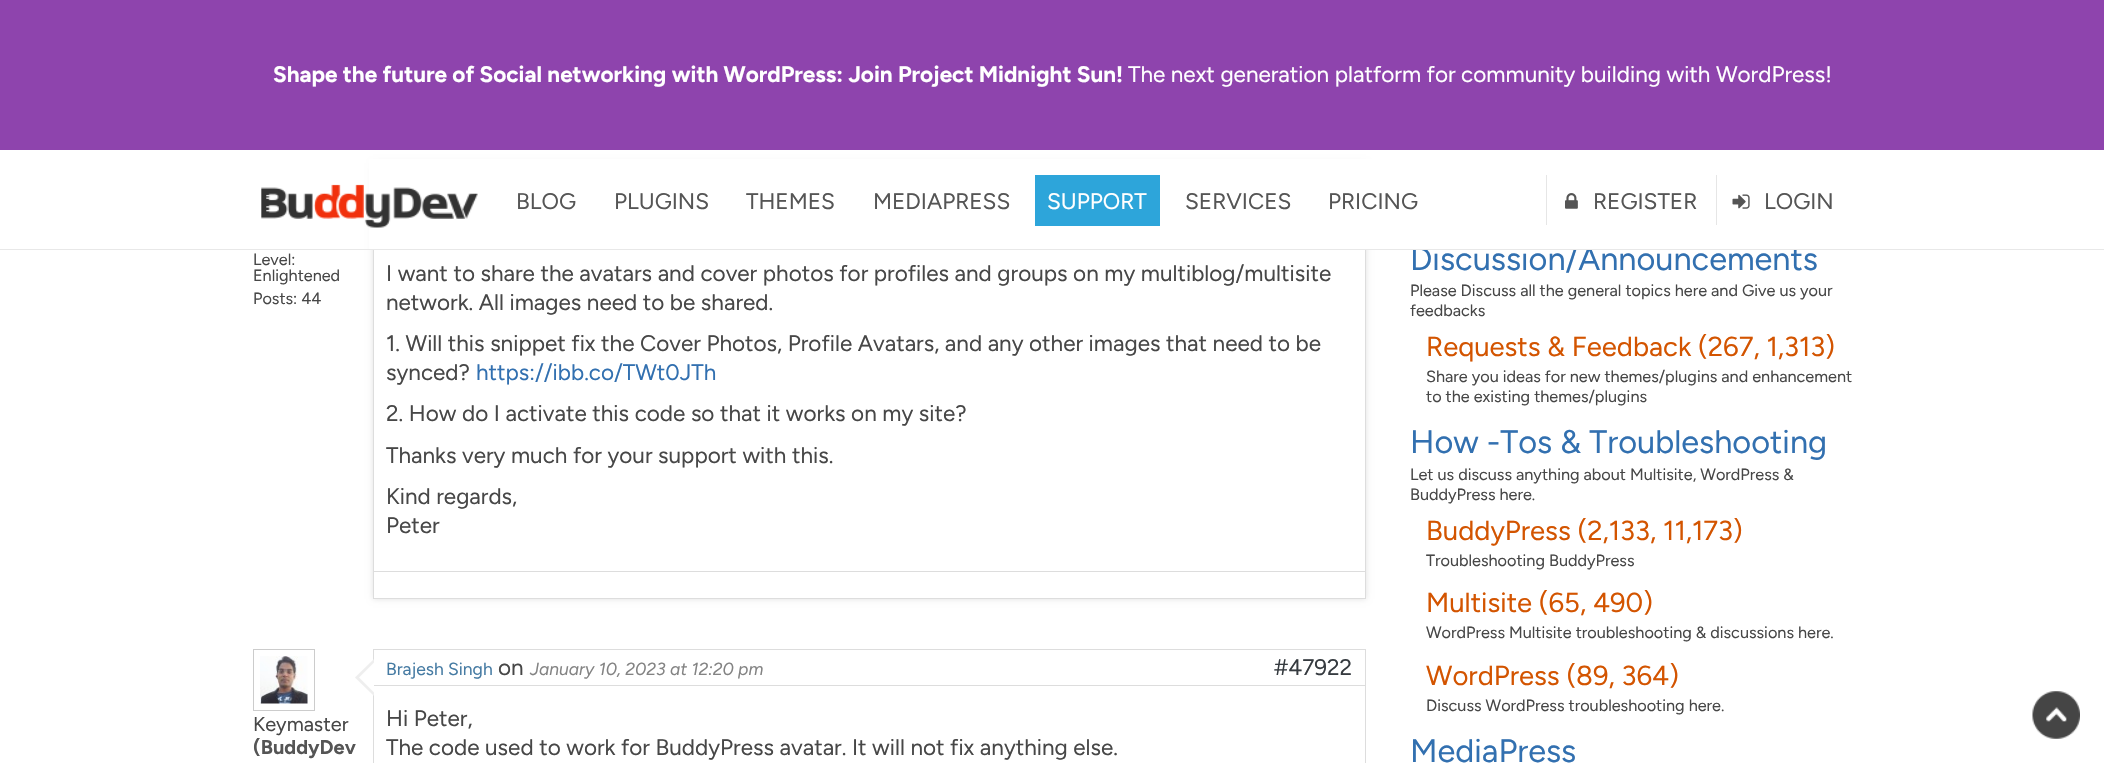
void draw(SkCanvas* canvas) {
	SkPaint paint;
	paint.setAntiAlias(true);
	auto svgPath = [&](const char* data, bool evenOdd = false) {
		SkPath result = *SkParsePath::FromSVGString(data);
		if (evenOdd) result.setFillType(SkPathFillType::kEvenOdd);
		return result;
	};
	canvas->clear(0xffffffff);
	paint.setColor(0xff8e44ad);
	canvas->drawRect(SkRect::MakeXYWH(0, 0, 2104, 150), paint);
	SkFont f1(fontMgr->matchFamilyStyle("Figtree", SkFontStyle::Bold()), 22.5);
	f1.setSubpixel(true);
	paint.setColor(0xffffffff);
	canvas->drawString("Shape the future of Social networking with WordPress: Join Project Midnight Sun!", 273, 82, f1, paint);
	SkFont f2(fontMgr->matchFamilyStyle("Figtree", SkFontStyle::Normal()), 22.5);
	f2.setSubpixel(true);
	canvas->drawString("The next generation platform for community building with WordPress!", 1128, 82, f2, paint);
	paint.setColor(0xffe1e1e1);
	paint.setMaskFilter(SkMaskFilter::MakeBlur(kNormal_SkBlurStyle, 3));
	canvas->drawRect(SkRect::MakeXYWH(373, 163, 993, 436), paint);
	paint.setMaskFilter(nullptr);
	paint.setColor(0xffffffff);
	canvas->drawRect(SkRect::MakeXYWH(374, 250, 991, 348), paint);
	paint.setStroke(true);
	paint.setStrokeWidth(1);
	paint.setColor(0xffdddddd);
	canvas->drawRect(SkRect::MakeXYWH(373.5, 163.5, 992, 435), paint);
	SkFont f3(fontMgr->matchFamilyStyle("Figtree", SkFontStyle::Normal()), 32.5);
	f3.setSubpixel(true);
	paint.setStroke(false);
	paint.setColor(0xff3270b0);
	canvas->drawString("Discussion/Announcements", 1410, 270, f3, paint);
	paint.setColor(0xffffffff);
	canvas->drawRect(SkRect::MakeXYWH(369, 159, 1428, 90), paint);
	paint.setColor(0xffe8e8e8);
	canvas->drawRect(SkRect::MakeXYWH(0, 249, 2104, 1), paint);
	canvas->drawImageRect(SkImages::DeferredFromEncodedData(SkData::MakeFromFileName("img1.png")), SkRect::MakeXYWH(261, 184, 217, 44), SkSamplingOptions());
	paint.setColor(0xff555555);
	canvas->drawString("BLOG", 516, 209, f2, paint);
	canvas->drawString("PLUGINS", 614, 209, f2, paint);
	canvas->drawString("THEMES", 746, 209, f2, paint);
	canvas->drawString("MEDIAPRESS", 873, 209, f2, paint);
	paint.setColor(0xff2da5da);
	canvas->drawRect(SkRect::MakeXYWH(1035, 175, 125, 51), paint);
	paint.setColor(0xffffffff);
	canvas->drawString("SUPPORT", 1047, 209, f2, paint);
	paint.setColor(0xff555555);
	canvas->drawString("SERVICES", 1185, 209, f2, paint);
	canvas->drawString("PRICING", 1328, 209, f2, paint);
	paint.setColor(0xffe6e6e6);
	canvas->drawRect(SkRect::MakeXYWH(1546, 175, 1, 50), paint);
	canvas->drawImageRect(SkImages::DeferredFromEncodedData(SkData::MakeFromFileName("img2.png")), SkRect::MakeXYWH(1565, 193, 13, 16), SkSamplingOptions());
	paint.setColor(0xff555555);
	canvas->drawString("REGISTER", 1593, 209, f2, paint);
	paint.setColor(0xffe6e6e6);
	canvas->drawRect(SkRect::MakeXYWH(1716, 175, 1, 50), paint);
	canvas->drawImageRect(SkImages::DeferredFromEncodedData(SkData::MakeFromFileName("img3.png")), SkRect::MakeXYWH(1732, 194, 18, 15), SkSamplingOptions());
	paint.setColor(0xff555555);
	canvas->drawString("LOGIN", 1764, 209, f2, paint);
	SkFont f4(fontMgr->matchFamilyStyle("Figtree", SkFontStyle::Normal()), 16.25);
	f4.setSubpixel(true);
	paint.setColor(0xff474747);
	canvas->drawString("Level:", 253, 265, f4, paint);
	canvas->drawString("Enlightened", 253, 281, f4, paint);
	canvas->drawString("Posts: 44", 253, 304, f4, paint);
	canvas->drawString("I want to share the avatars and cover photos for profiles and groups on my multiblog/multisite", 386, 281, f2, paint);
	canvas->drawString("network. All images need to be shared.", 386, 310, f2, paint);
	canvas->drawString("1. Will this snippet fix the Cover Photos, Profile Avatars, and any other images that need to be", 386, 351, f2, paint);
	canvas->drawString("synced?", 386, 380, f2, paint);
	paint.setColor(0xff3270b0);
	canvas->drawString("https://ibb.co/TWt0JTh", 476, 380, f2, paint);
	paint.setColor(0xff474747);
	canvas->drawString("2. How do I activate this code so that it works on my site?", 386, 421, f2, paint);
	canvas->drawString("Thanks very much for your support with this.", 386, 463, f2, paint);
	canvas->drawString("Kind regards,", 386, 504, f2, paint);
	canvas->drawString("Peter", 386, 533, f2, paint);
	paint.setColor(0xffdddddd);
	canvas->drawRect(SkRect::MakeXYWH(374, 571, 991, 1), paint);
	paint.setStroke(true);
	paint.setColor(0xffcccccc);
	canvas->drawRect(SkRect::MakeXYWH(253.5, 649.5, 61, 61), paint);
	canvas->drawImageRect(SkImages::DeferredFromEncodedData(SkData::MakeFromFileName("img4.png")), SkRect::MakeXYWH(260, 656, 48, 48), SkSamplingOptions());
	SkFont f5(fontMgr->matchFamilyStyle("Figtree", SkFontStyle::Normal()), 20);
	f5.setSubpixel(true);
	paint.setStroke(false);
	paint.setColor(0xff474747);
	canvas->drawString("Keymaster", 253, 731, f5, paint);
	SkFont f6(fontMgr->matchFamilyStyle("Figtree", SkFontStyle::Bold()), 20);
	f6.setSubpixel(true);
	paint.setColor(0xff555555);
	canvas->drawString("(BuddyDev", 253, 754, f6, paint);
	paint.setStroke(true);
	paint.setColor(0xffdddddd);
	canvas->drawRect(SkRect::MakeXYWH(373.5, 649.5, 992, 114), paint);
	paint.setStroke(false);
	paint.setColor(0xffeeeeee);
	canvas->drawPath(svgPath("M374 659V696L355 677.5Z"), paint);
	paint.setColor(0xffdddddd);
	canvas->drawRect(SkRect::MakeXYWH(374, 685, 991, 1), paint);
	SkFont f7(fontMgr->matchFamilyStyle("Figtree", SkFontStyle::Normal()), 17.5);
	f7.setSubpixel(true);
	paint.setColor(0xff467ba3);
	canvas->drawString("Brajesh Singh", 386, 675, f7, paint);
	paint.setColor(0xff474747);
	canvas->drawString("on", 498, 675, f2, paint);
	SkFont f8(fontMgr->matchFamilyStyle("Figtree", SkFontStyle(300, SkFontStyle::kNormal_Width, SkFontStyle::kItalic_Slant)), 17.5);
	f8.setSubpixel(true);
	paint.setColor(0xff838383);
	canvas->drawString("January 10, 2023 at 12:20 pm", 530, 675, f8, paint);
	paint.setColor(0xff363b40);
	canvas->drawString("#47922", 1274, 675, f2, paint);
	paint.setColor(0xffffffff);
	canvas->drawPath(svgPath("M374 662.5V692.5L359 677.5Z"), paint);
	paint.setColor(0xff474747);
	canvas->drawString("Hi Peter,", 386, 726, f2, paint);
	canvas->drawString("The code used to work for BuddyPress avatar. It will not fix anything else.", 386, 755, f2, paint);
	canvas->drawString("Please Discuss all the general topics here and Give us your", 1410, 296, f4, paint);
	canvas->drawString("feedbacks", 1410, 316, f4, paint);
	SkFont f9(fontMgr->matchFamilyStyle("Figtree", SkFontStyle::Normal()), 27.5);
	f9.setSubpixel(true);
	paint.setColor(0xffd35400);
	canvas->drawString("Requests & Feedback (267, 1,313)", 1426, 356, f9, paint);
	paint.setColor(0xff474747);
	canvas->drawString("Share you ideas for new themes/plugins and enhancement", 1426, 382, f4, paint);
	canvas->drawString("to the existing themes/plugins", 1426, 402, f4, paint);
	paint.setColor(0xff3270b0);
	canvas->drawString("How -Tos & Troubleshooting", 1410, 453, f3, paint);
	paint.setColor(0xff474747);
	canvas->drawString("Let us discuss anything about Multisite, WordPress &", 1410, 480, f4, paint);
	canvas->drawString("BuddyPress here.", 1410, 500, f4, paint);
	paint.setColor(0xffd35400);
	canvas->drawString("BuddyPress (2,133, 11,173)", 1426, 540, f9, paint);
	paint.setColor(0xff474747);
	canvas->drawString("Troubleshooting BuddyPress", 1426, 566, f4, paint);
	paint.setColor(0xffd35400);
	canvas->drawString("Multisite (65, 490)", 1426, 612, f9, paint);
	paint.setColor(0xff474747);
	canvas->drawString("WordPress Multisite troubleshooting & discussions here.", 1426, 638, f4, paint);
	paint.setColor(0xffd35400);
	canvas->drawString("WordPress (89, 364)", 1426, 685, f9, paint);
	paint.setColor(0xff474747);
	canvas->drawString("Discuss WordPress troubleshooting here.", 1426, 711, f4, paint);
	paint.setColor(0xff3270b0);
	canvas->drawString("MediaPress", 1410, 762, f3, paint);
	canvas->drawImageRect(SkImages::DeferredFromEncodedData(SkData::MakeFromFileName("img5.png")), SkRect::MakeXYWH(2032, 691, 48, 48), SkSamplingOptions());
}
